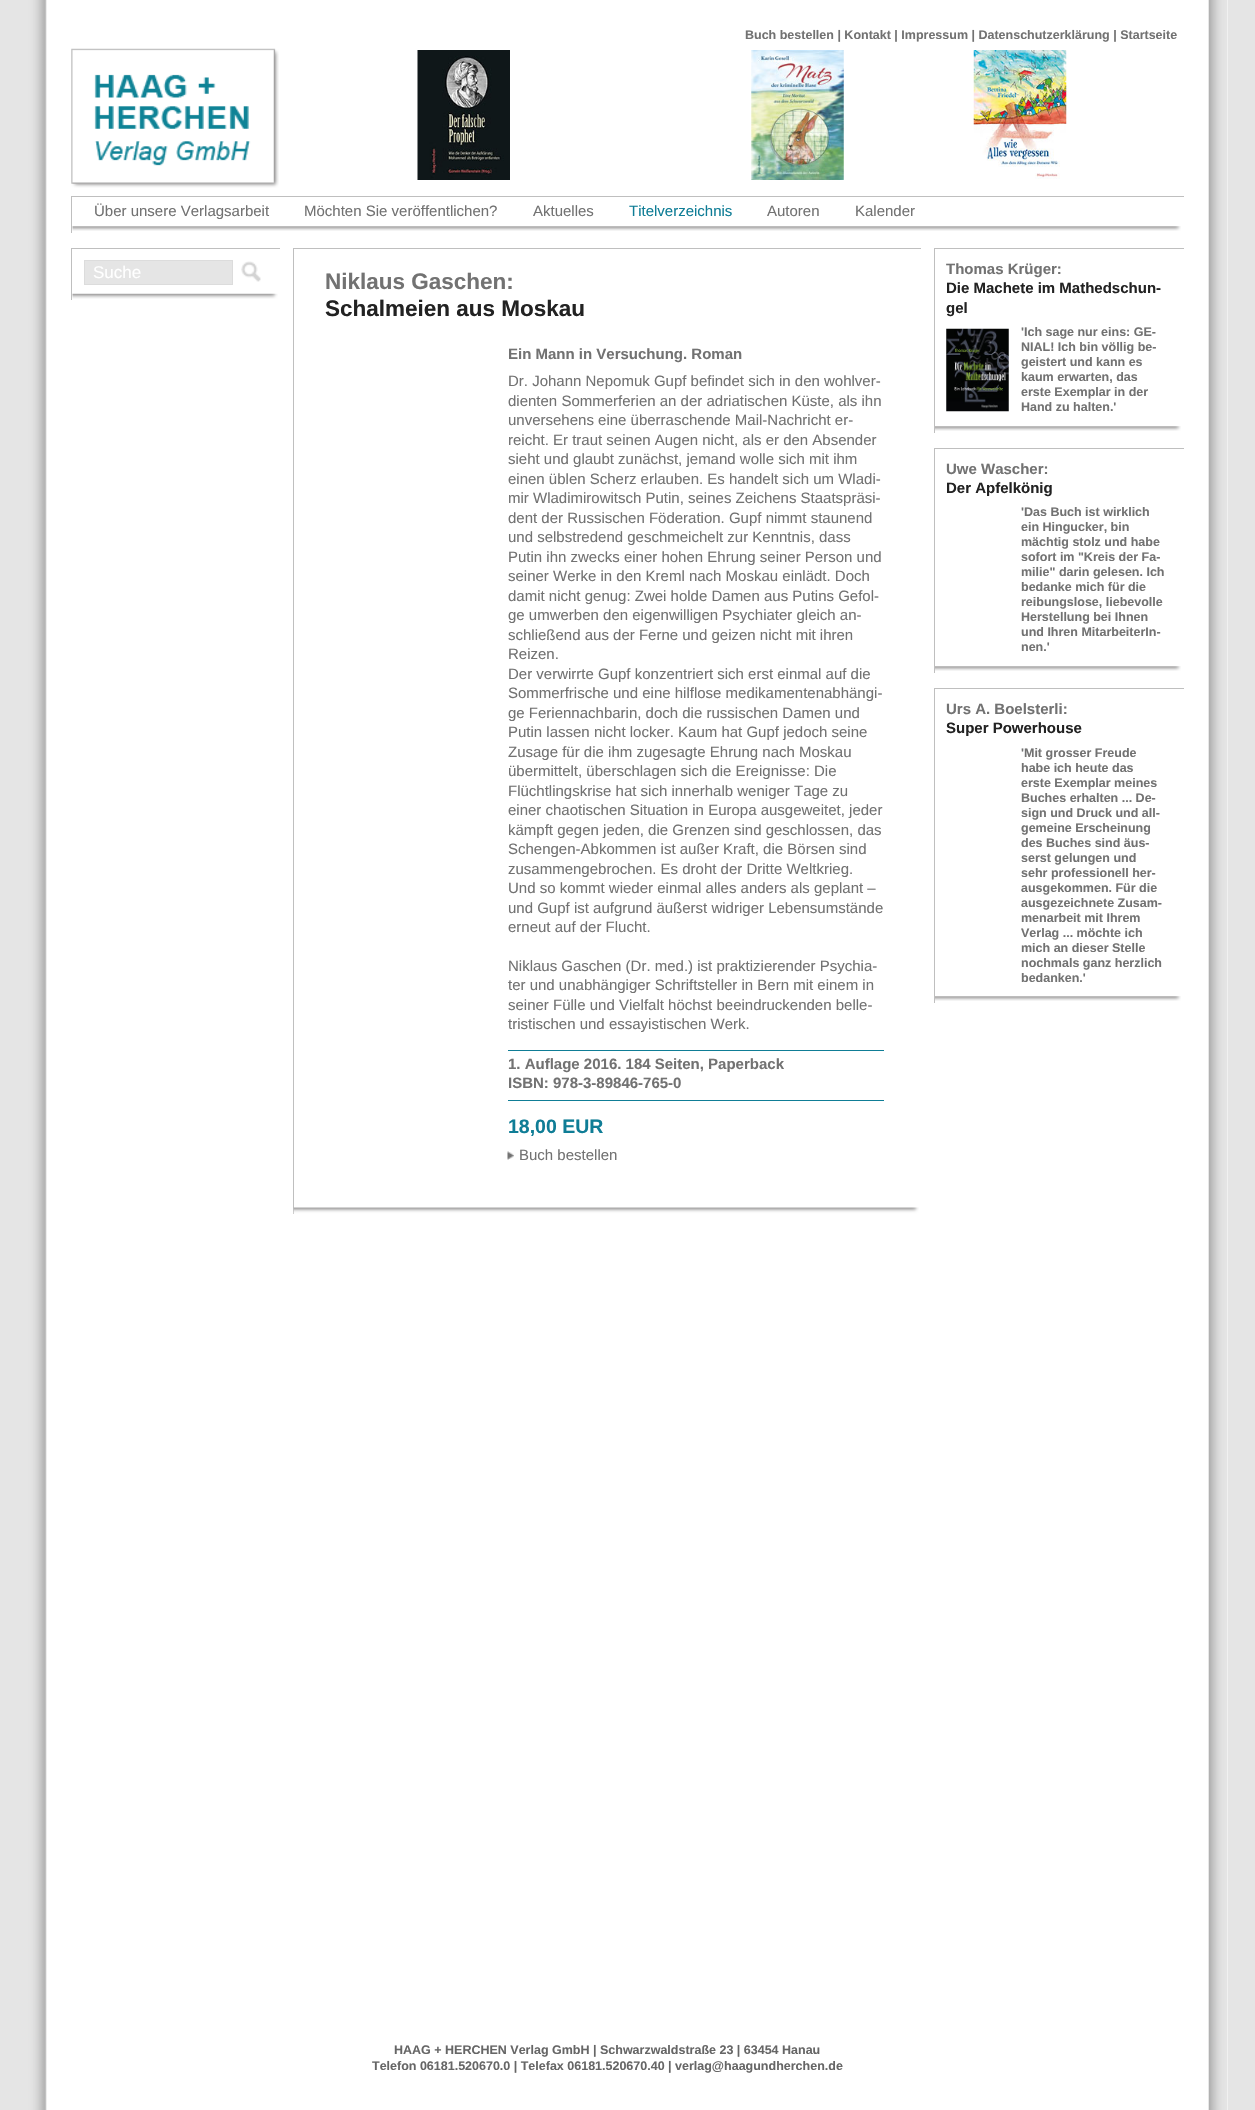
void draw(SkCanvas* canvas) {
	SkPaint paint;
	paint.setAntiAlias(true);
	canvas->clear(0xffe5e5e5);
	paint.setColor(0xffffffff);
	canvas->drawRect(SkRect::MakeXYWH(1227, 0, 1, 2110), paint);
	canvas->drawImageRect(SkImages::DeferredFromEncodedData(SkData::MakeFromFileName("img1.png")), SkRect::MakeXYWH(28, 0, 1200, 2110), SkSamplingOptions());
	SkFont f1(fontMgr->matchFamilyStyle("Liberation Sans", SkFontStyle::Bold()), 12.5);
	f1.setSubpixel(true);
	paint.setColor(0xff727272);
	canvas->drawString("Buch bestellen | Kontakt | Impressum | Datenschutzerklärung | Startseite", 745, 39, f1, paint);
	canvas->drawImageRect(SkImages::DeferredFromEncodedData(SkData::MakeFromFileName("img2.png")), SkRect::MakeXYWH(71, 48, 208, 140), SkSamplingOptions());
	canvas->drawImageRect(SkImages::DeferredFromEncodedData(SkData::MakeFromFileName("img3.png")), SkRect::MakeXYWH(417, 50, 93, 130), SkSamplingOptions());
	canvas->drawImageRect(SkImages::DeferredFromEncodedData(SkData::MakeFromFileName("img4.png")), SkRect::MakeXYWH(751, 50, 93, 130), SkSamplingOptions());
	canvas->drawImageRect(SkImages::DeferredFromEncodedData(SkData::MakeFromFileName("img5.png")), SkRect::MakeXYWH(973, 50, 94, 129), SkSamplingOptions());
	paint.setColor(0xffbfbfbf);
	canvas->drawRect(SkRect::MakeXYWH(71, 196, 1113, 1), paint);
	canvas->drawRect(SkRect::MakeXYWH(71, 196, 1, 37), paint);
	SkFont f2(fontMgr->matchFamilyStyle("Liberation Sans", SkFontStyle::Normal()), 15);
	f2.setSubpixel(true);
	paint.setColor(0xff727272);
	canvas->drawString("Über unsere Verlagsarbeit", 94, 216, f2, paint);
	canvas->drawString("Möchten Sie veröffentlichen?", 304, 216, f2, paint);
	canvas->drawString("Aktuelles", 533, 216, f2, paint);
	paint.setColor(0xff0f7d96);
	canvas->drawString("Titelverzeichnis", 629, 216, f2, paint);
	paint.setColor(0xff727272);
	canvas->drawString("Autoren", 767, 216, f2, paint);
	canvas->drawString("Kalender", 855, 216, f2, paint);
	canvas->drawImageRect(SkImages::DeferredFromEncodedData(SkData::MakeFromFileName("img6.png")), SkRect::MakeXYWH(72, 226, 1109, 5), SkSamplingOptions());
	paint.setColor(0xffbfbfbf);
	canvas->drawRect(SkRect::MakeXYWH(71, 248, 209, 1), paint);
	canvas->drawRect(SkRect::MakeXYWH(71, 248, 1, 52), paint);
	paint.setColor(0xffe5e5e5);
	canvas->drawRect(SkRect::MakeXYWH(84.5, 260.5, 148, 24), paint);
	paint.setStroke(true);
	paint.setStrokeWidth(1);
	paint.setColor(0xffdcdcdc);
	canvas->drawRect(SkRect::MakeXYWH(84.5, 260.5, 148, 24), paint);
	SkFont f3(fontMgr->matchFamilyStyle("Liberation Sans", SkFontStyle::Normal()), 17);
	f3.setSubpixel(true);
	paint.setStroke(false);
	paint.setColor(0xffffffff);
	canvas->drawString("Suche", 93, 278, f3, paint);
	canvas->drawImageRect(SkImages::DeferredFromEncodedData(SkData::MakeFromFileName("img7.png")), SkRect::MakeXYWH(241, 261, 20, 21), SkSamplingOptions());
	canvas->drawImageRect(SkImages::DeferredFromEncodedData(SkData::MakeFromFileName("img8.png")), SkRect::MakeXYWH(72, 293, 206, 6), SkSamplingOptions());
	paint.setColor(0xffbfbfbf);
	canvas->drawRect(SkRect::MakeXYWH(293, 248, 628, 1), paint);
	canvas->drawRect(SkRect::MakeXYWH(293, 248, 1, 966), paint);
	SkFont f4(fontMgr->matchFamilyStyle("Liberation Sans", SkFontStyle::Bold()), 22.5);
	f4.setSubpixel(true);
	paint.setColor(0xff727272);
	canvas->drawString("Niklaus Gaschen:", 325, 289, f4, paint);
	paint.setColor(0xff222222);
	canvas->drawString("Schalmeien aus Moskau", 325, 316, f4, paint);
	SkFont f5(fontMgr->matchFamilyStyle("Liberation Sans", SkFontStyle::Bold()), 15);
	f5.setSubpixel(true);
	paint.setColor(0xff727272);
	canvas->drawString("Ein Mann in Versuchung. Roman", 508, 359, f5, paint);
	canvas->drawString("Dr. Johann Nepomuk Gupf befindet sich in den wohlver-", 508, 386, f2, paint);
	canvas->drawString("dienten Sommerferien an der adriatischen Küste, als ihn", 508, 406, f2, paint);
	canvas->drawString("unversehens eine überraschende Mail-Nachricht er-", 508, 425, f2, paint);
	canvas->drawString("reicht. Er traut seinen Augen nicht, als er den Absender", 508, 445, f2, paint);
	canvas->drawString("sieht und glaubt zunächst, jemand wolle sich mit ihm", 508, 464, f2, paint);
	canvas->drawString("einen üblen Scherz erlauben. Es handelt sich um Wladi-", 508, 484, f2, paint);
	canvas->drawString("mir Wladimirowitsch Putin, seines Zeichens Staatspräsi-", 508, 503, f2, paint);
	canvas->drawString("dent der Russischen Föderation. Gupf nimmt staunend", 508, 523, f2, paint);
	canvas->drawString("und selbstredend geschmeichelt zur Kenntnis, dass", 508, 542, f2, paint);
	canvas->drawString("Putin ihn zwecks einer hohen Ehrung seiner Person und", 508, 562, f2, paint);
	canvas->drawString("seiner Werke in den Kreml nach Moskau einlädt. Doch", 508, 581, f2, paint);
	canvas->drawString("damit nicht genug: Zwei holde Damen aus Putins Gefol-", 508, 601, f2, paint);
	canvas->drawString("ge umwerben den eigenwilligen Psychiater gleich an-", 508, 620, f2, paint);
	canvas->drawString("schließend aus der Ferne und geizen nicht mit ihren", 508, 640, f2, paint);
	canvas->drawString("Reizen.", 508, 659, f2, paint);
	canvas->drawString("Der verwirrte Gupf konzentriert sich erst einmal auf die", 508, 679, f2, paint);
	canvas->drawString("Sommerfrische und eine hilflose medikamentenabhängi-", 508, 698, f2, paint);
	canvas->drawString("ge Feriennachbarin, doch die russischen Damen und", 508, 718, f2, paint);
	canvas->drawString("Putin lassen nicht locker. Kaum hat Gupf jedoch seine", 508, 737, f2, paint);
	canvas->drawString("Zusage für die ihm zugesagte Ehrung nach Moskau", 508, 757, f2, paint);
	canvas->drawString("übermittelt, überschlagen sich die Ereignisse: Die", 508, 776, f2, paint);
	canvas->drawString("Flüchtlingskrise hat sich innerhalb weniger Tage zu", 508, 796, f2, paint);
	canvas->drawString("einer chaotischen Situation in Europa ausgeweitet, jeder", 508, 815, f2, paint);
	canvas->drawString("kämpft gegen jeden, die Grenzen sind geschlossen, das", 508, 835, f2, paint);
	canvas->drawString("Schengen-Abkommen ist außer Kraft, die Börsen sind", 508, 854, f2, paint);
	canvas->drawString("zusammengebrochen. Es droht der Dritte Weltkrieg.", 508, 874, f2, paint);
	canvas->drawString("Und so kommt wieder einmal alles anders als geplant –", 508, 893, f2, paint);
	canvas->drawString("und Gupf ist aufgrund äußerst widriger Lebensumstände", 508, 913, f2, paint);
	canvas->drawString("erneut auf der Flucht.", 508, 932, f2, paint);
	canvas->drawString("Niklaus Gaschen (Dr. med.) ist praktizierender Psychia-", 508, 971, f2, paint);
	canvas->drawString("ter und unabhängiger Schriftsteller in Bern mit einem in", 508, 990, f2, paint);
	canvas->drawString("seiner Fülle und Vielfalt höchst beeindruckenden belle-", 508, 1010, f2, paint);
	canvas->drawString("tristischen und essayistischen Werk.", 508, 1029, f2, paint);
	paint.setColor(0xff0f7d96);
	canvas->drawRect(SkRect::MakeXYWH(508, 1050, 376, 1), paint);
	canvas->drawRect(SkRect::MakeXYWH(508, 1100, 376, 1), paint);
	paint.setColor(0xff727272);
	canvas->drawString("1. Auflage 2016. 184 Seiten, Paperback", 508, 1069, f5, paint);
	canvas->drawString("ISBN: 978-3-89846-765-0", 508, 1088, f5, paint);
	SkFont f6(fontMgr->matchFamilyStyle("Liberation Sans", SkFontStyle::Bold()), 19.5);
	f6.setSubpixel(true);
	paint.setColor(0xff0f7d96);
	canvas->drawString("18,00 EUR", 508, 1133, f6, paint);
	canvas->drawImageRect(SkImages::DeferredFromEncodedData(SkData::MakeFromFileName("img9.png")), SkRect::MakeXYWH(507, 1151, 7, 9), SkSamplingOptions());
	paint.setColor(0xff727272);
	canvas->drawString("Buch bestellen", 519, 1160, f2, paint);
	canvas->drawImageRect(SkImages::DeferredFromEncodedData(SkData::MakeFromFileName("img10.png")), SkRect::MakeXYWH(293, 1207, 626, 7), SkSamplingOptions());
	paint.setColor(0xffbfbfbf);
	canvas->drawRect(SkRect::MakeXYWH(934, 248, 250, 1), paint);
	canvas->drawRect(SkRect::MakeXYWH(934, 248, 1, 185), paint);
	paint.setColor(0xff727272);
	canvas->drawString("Thomas Krüger:", 946, 274, f5, paint);
	paint.setColor(0xff222222);
	canvas->drawString("Die Machete im Mathedschun-", 946, 293, f5, paint);
	canvas->drawString("gel", 946, 313, f5, paint);
	canvas->drawImageRect(SkImages::DeferredFromEncodedData(SkData::MakeFromFileName("img11.png")), SkRect::MakeXYWH(946, 328, 63, 84), SkSamplingOptions());
	paint.setColor(0xff727272);
	canvas->drawString("'Ich sage nur eins: GE-", 1021, 336, f1, paint);
	canvas->drawString("NIAL! Ich bin völlig be-", 1021, 351, f1, paint);
	canvas->drawString("geistert und kann es", 1021, 366, f1, paint);
	canvas->drawString("kaum erwarten, das", 1021, 381, f1, paint);
	canvas->drawString("erste Exemplar in der", 1021, 396, f1, paint);
	canvas->drawString("Hand zu halten.'", 1021, 411, f1, paint);
	canvas->drawImageRect(SkImages::DeferredFromEncodedData(SkData::MakeFromFileName("img12.png")), SkRect::MakeXYWH(935, 426, 246, 5), SkSamplingOptions());
	paint.setColor(0xffbfbfbf);
	canvas->drawRect(SkRect::MakeXYWH(934, 448, 250, 1), paint);
	canvas->drawRect(SkRect::MakeXYWH(934, 448, 1, 225), paint);
	paint.setColor(0xff727272);
	canvas->drawString("Uwe Wascher:", 946, 474, f5, paint);
	paint.setColor(0xff222222);
	canvas->drawString("Der Apfelkönig", 946, 493, f5, paint);
	paint.setColor(0xff727272);
	canvas->drawString("'Das Buch ist wirklich", 1021, 516, f1, paint);
	canvas->drawString("ein Hingucker, bin", 1021, 531, f1, paint);
	canvas->drawString("mächtig stolz und habe", 1021, 546, f1, paint);
	canvas->drawString("sofort im \"Kreis der Fa-", 1021, 561, f1, paint);
	canvas->drawString("milie\" darin gelesen. Ich", 1021, 576, f1, paint);
	canvas->drawString("bedanke mich für die", 1021, 591, f1, paint);
	canvas->drawString("reibungslose, liebevolle", 1021, 606, f1, paint);
	canvas->drawString("Herstellung bei Ihnen", 1021, 621, f1, paint);
	canvas->drawString("und Ihren MitarbeiterIn-", 1021, 636, f1, paint);
	canvas->drawString("nen.'", 1021, 651, f1, paint);
	canvas->drawImageRect(SkImages::DeferredFromEncodedData(SkData::MakeFromFileName("img12.png")), SkRect::MakeXYWH(935, 666, 246, 5), SkSamplingOptions());
	paint.setColor(0xffbfbfbf);
	canvas->drawRect(SkRect::MakeXYWH(934, 688, 250, 1), paint);
	canvas->drawRect(SkRect::MakeXYWH(934, 688, 1, 315), paint);
	paint.setColor(0xff727272);
	canvas->drawString("Urs A. Boelsterli:", 946, 714, f5, paint);
	paint.setColor(0xff222222);
	canvas->drawString("Super Powerhouse", 946, 733, f5, paint);
	paint.setColor(0xff727272);
	canvas->drawString("'Mit grosser Freude", 1021, 757, f1, paint);
	canvas->drawString("habe ich heute das", 1021, 772, f1, paint);
	canvas->drawString("erste Exemplar meines", 1021, 787, f1, paint);
	canvas->drawString("Buches erhalten ... De-", 1021, 802, f1, paint);
	canvas->drawString("sign und Druck und all-", 1021, 817, f1, paint);
	canvas->drawString("gemeine Erscheinung", 1021, 832, f1, paint);
	canvas->drawString("des Buches sind äus-", 1021, 847, f1, paint);
	canvas->drawString("serst gelungen und", 1021, 862, f1, paint);
	canvas->drawString("sehr professionell her-", 1021, 877, f1, paint);
	canvas->drawString("ausgekommen. Für die", 1021, 892, f1, paint);
	canvas->drawString("ausgezeichnete Zusam-", 1021, 907, f1, paint);
	canvas->drawString("menarbeit mit Ihrem", 1021, 922, f1, paint);
	canvas->drawString("Verlag ... möchte ich", 1021, 937, f1, paint);
	canvas->drawString("mich an dieser Stelle", 1021, 952, f1, paint);
	canvas->drawString("nochmals ganz herzlich", 1021, 967, f1, paint);
	canvas->drawString("bedanken.'", 1021, 982, f1, paint);
	canvas->drawImageRect(SkImages::DeferredFromEncodedData(SkData::MakeFromFileName("img12.png")), SkRect::MakeXYWH(935, 996, 246, 5), SkSamplingOptions());
	paint.setColor(0xff666666);
	canvas->drawString("HAAG + HERCHEN Verlag GmbH | Schwarzwaldstraße 23 | 63454 Hanau", 394, 2054, f1, paint);
	canvas->drawString("Telefon 06181.520670.0 | Telefax 06181.520670.40 | verlag@haagundherchen.de", 372, 2070, f1, paint);
}
